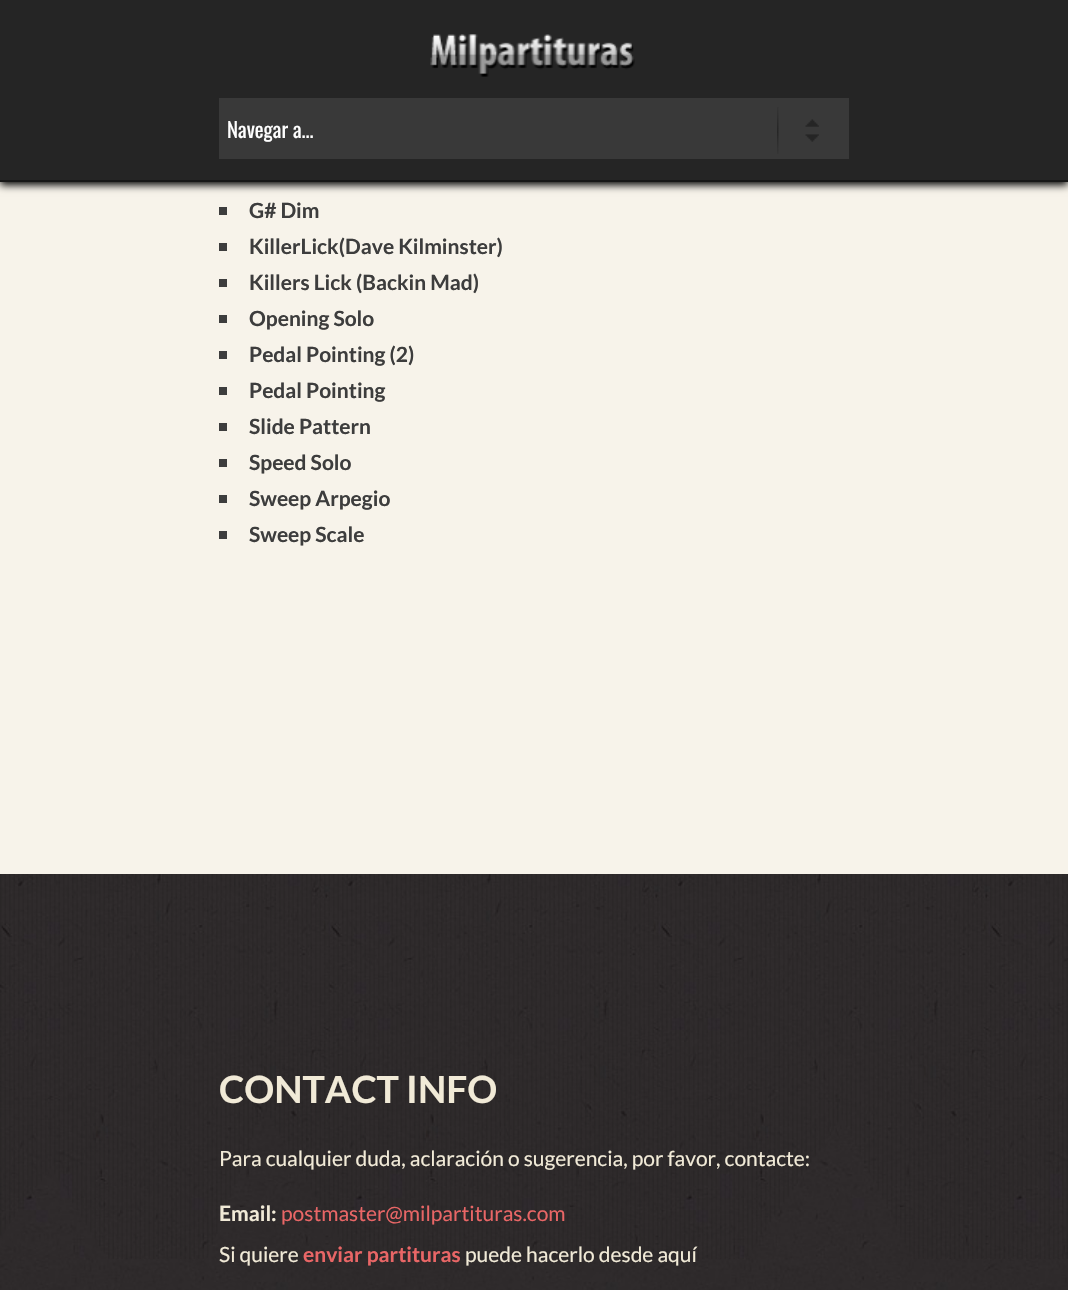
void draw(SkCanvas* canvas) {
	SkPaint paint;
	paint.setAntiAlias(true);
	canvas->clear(0xfff7f3ea);
	paint.setColor(0xff000000);
	paint.setMaskFilter(SkMaskFilter::MakeBlur(kNormal_SkBlurStyle, 4));
	canvas->drawRect(SkRect::MakeXYWH(0, 3, 1068, 182), paint);
	paint.setMaskFilter(nullptr);
	paint.setColor(0xff252525);
	canvas->drawRect(SkRect::MakeXYWH(0, 0, 1068, 180), paint);
	paint.setColor(0xff171717);
	canvas->drawRect(SkRect::MakeXYWH(0, 180, 1068, 2), paint);
	canvas->drawImageRect(SkImages::DeferredFromEncodedData(SkData::MakeFromFileName("img1.png")), SkRect::MakeXYWH(430, 34, 205, 43), SkSamplingOptions());
	paint.setColor(0xff393939);
	canvas->drawRect(SkRect::MakeXYWH(219, 98, 630, 61), paint);
	canvas->drawImageRect(SkImages::DeferredFromEncodedData(SkData::MakeFromFileName("img2.png")), SkRect::MakeXYWH(777, 107, 42, 47), SkSamplingOptions());
	SkFont f1(fontMgr->matchFamilyStyle("Oswald", SkFontStyle::Normal()), 21);
	f1.setSubpixel(true);
	paint.setColor(0xffffffff);
	canvas->drawString("Navegar a...", 227, 138, f1, paint);
	paint.setColor(0xff3d3d3d);
	canvas->drawRect(SkRect::MakeXYWH(219, 207, 8, 8), paint);
	SkFont f2(fontMgr->matchFamilyStyle("Lato", SkFontStyle::Bold()), 21);
	f2.setSubpixel(true);
	canvas->drawString("G# Dim", 249, 218, f2, paint);
	canvas->drawRect(SkRect::MakeXYWH(219, 243, 8, 8), paint);
	canvas->drawString("KillerLick(Dave Kilminster)", 249, 254, f2, paint);
	canvas->drawRect(SkRect::MakeXYWH(219, 279, 8, 8), paint);
	canvas->drawString("Killers Lick (Backin Mad)", 249, 290, f2, paint);
	canvas->drawRect(SkRect::MakeXYWH(219, 315, 8, 8), paint);
	canvas->drawString("Opening Solo", 249, 326, f2, paint);
	canvas->drawRect(SkRect::MakeXYWH(219, 351, 8, 8), paint);
	canvas->drawString("Pedal Pointing (2)", 249, 362, f2, paint);
	canvas->drawRect(SkRect::MakeXYWH(219, 387, 8, 8), paint);
	canvas->drawString("Pedal Pointing", 249, 398, f2, paint);
	canvas->drawRect(SkRect::MakeXYWH(219, 423, 8, 8), paint);
	canvas->drawString("Slide Pattern", 249, 434, f2, paint);
	canvas->drawRect(SkRect::MakeXYWH(219, 459, 8, 8), paint);
	canvas->drawString("Speed Solo", 249, 470, f2, paint);
	canvas->drawRect(SkRect::MakeXYWH(219, 495, 8, 8), paint);
	canvas->drawString("Sweep Arpegio", 249, 506, f2, paint);
	canvas->drawRect(SkRect::MakeXYWH(219, 531, 8, 8), paint);
	canvas->drawString("Sweep Scale", 249, 542, f2, paint);
	canvas->drawImageRect(SkImages::DeferredFromEncodedData(SkData::MakeFromFileName("img3.png")), SkRect::MakeXYWH(0, 874, 1068, 416), SkSamplingOptions());
	canvas->drawImageRect(SkImages::DeferredFromEncodedData(SkData::MakeFromFileName("img4.png")), SkRect::MakeXYWH(0, 874, 1068, 385), SkSamplingOptions());
	SkFont f3(fontMgr->matchFamilyStyle("Lato", SkFontStyle::Bold()), 37.5);
	f3.setSubpixel(true);
	paint.setColor(0xfff1ead7);
	canvas->drawString("CONTACT INFO", 219, 1103, f3, paint);
	SkFont f4(fontMgr->matchFamilyStyle("Lato", SkFontStyle::Normal()), 21);
	f4.setSubpixel(true);
	canvas->drawString("Para cualquier duda, aclaración o sugerencia, por favor, contacte:", 219, 1166, f4, paint);
	canvas->drawString("Email:", 219, 1221, f2, paint);
	paint.setColor(0xffe96666);
	canvas->drawString("postmaster@milpartituras.com", 281, 1221, f4, paint);
	paint.setColor(0xfff1ead7);
	canvas->drawString("Si quiere", 219, 1262, f4, paint);
	paint.setColor(0xffe96666);
	canvas->drawString("enviar partituras", 303, 1262, f2, paint);
	paint.setColor(0xfff1ead7);
	canvas->drawString("puede hacerlo desde aquí", 465, 1262, f4, paint);
}
